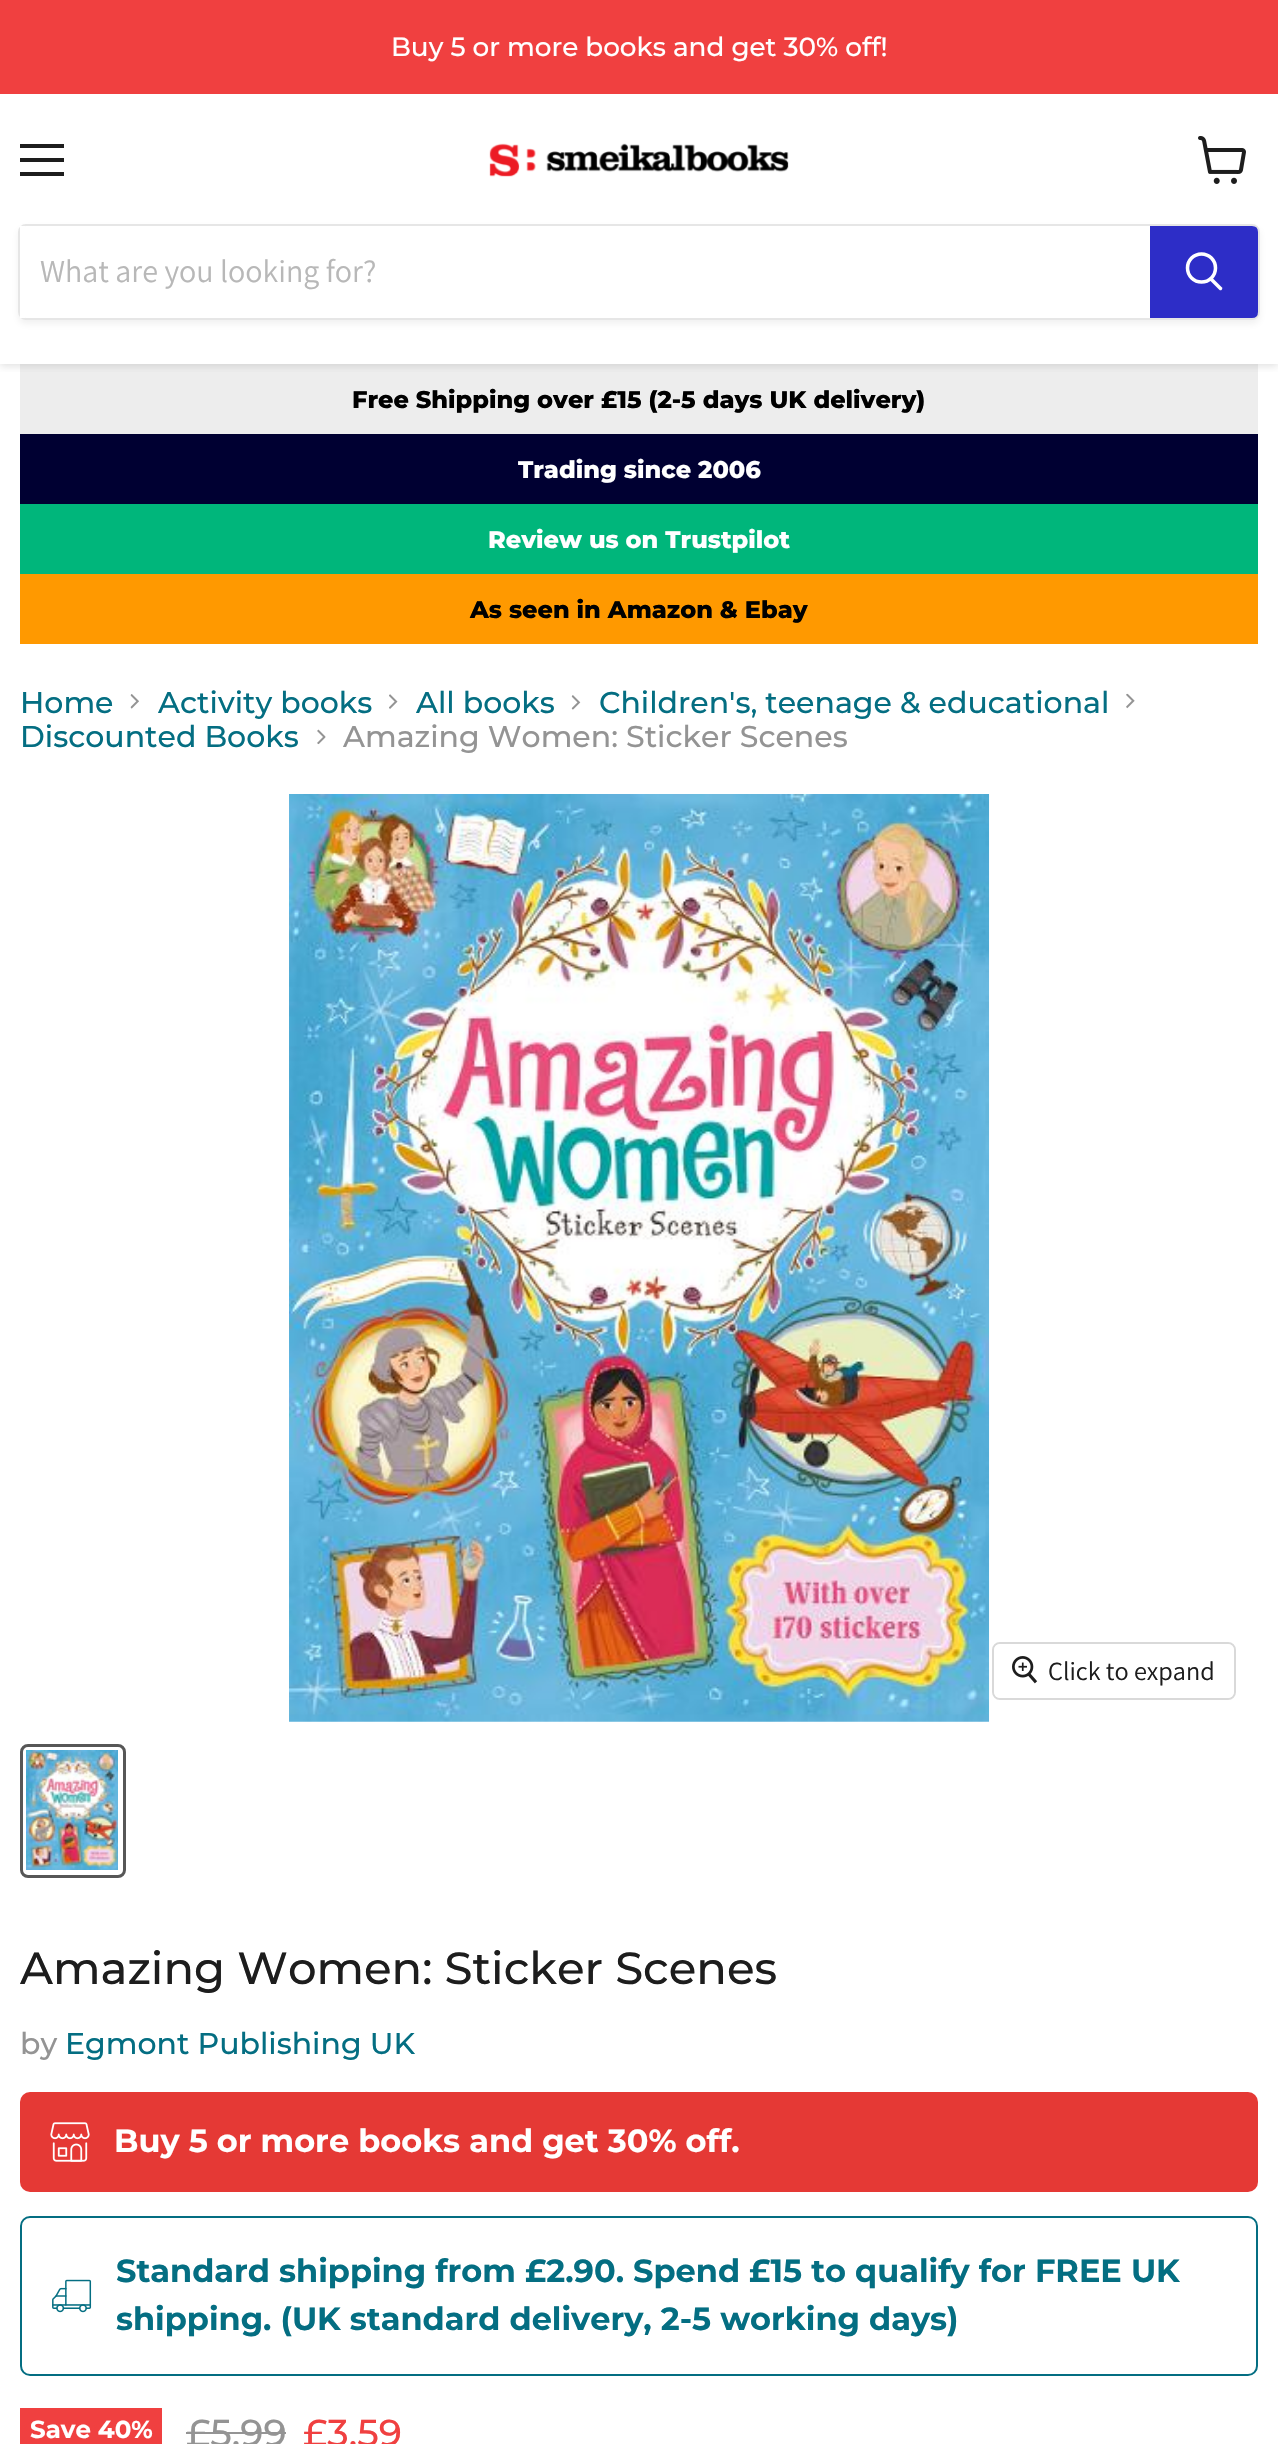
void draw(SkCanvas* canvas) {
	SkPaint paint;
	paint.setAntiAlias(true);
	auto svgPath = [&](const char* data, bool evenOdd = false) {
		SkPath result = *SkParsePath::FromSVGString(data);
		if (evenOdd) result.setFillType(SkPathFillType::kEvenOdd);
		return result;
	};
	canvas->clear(0xffffffff);
	paint.setColor(0xffededed);
	canvas->drawRect(SkRect::MakeXYWH(20, 364, 1238, 70), paint);
	canvas->save();
	canvas->clipRect(SkRect::MakeXYWH(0, 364, 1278, 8));
	paint.setColor(0x40808080);
	paint.setMaskFilter(SkMaskFilter::MakeBlur(kNormal_SkBlurStyle, 4));
	canvas->drawRect(SkRect::MakeXYWH(0, 2, 1278, 364), paint);
	paint.setMaskFilter(nullptr);
	canvas->restore();
	paint.setColor(0xfff04040);
	canvas->drawRect(SkRect::MakeXYWH(0, 0, 1278, 94), paint);
	SkFont f1(fontMgr->matchFamilyStyle("Montserrat", SkFontStyle(500, SkFontStyle::kNormal_Width, SkFontStyle::kUpright_Slant)), 26.25);
	f1.setSubpixel(true);
	paint.setColor(0xffffffff);
	canvas->drawString("Buy 5 or more books and get 30% off!", 391, 56, f1, paint);
	paint.setColor(0xff1d1d1d);
	canvas->drawRect(SkRect::MakeXYWH(20, 144, 44, 4), paint);
	canvas->drawRect(SkRect::MakeXYWH(20, 158, 44, 4), paint);
	canvas->drawRect(SkRect::MakeXYWH(20, 172, 44, 4), paint);
	canvas->drawImageRect(SkImages::DeferredFromEncodedData(SkData::MakeFromFileName("img1.png")), SkRect::MakeXYWH(1198, 136, 48, 48), SkSamplingOptions());
	canvas->drawImageRect(SkImages::DeferredFromEncodedData(SkData::MakeFromFileName("img2.png")), SkRect::MakeXYWH(489, 143, 300, 34), SkSamplingOptions());
	canvas->save();
	canvas->clipPath(svgPath("M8 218H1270V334H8ZM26 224H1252C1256.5 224 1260 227.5 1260 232V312C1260 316.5 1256.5 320 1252 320H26C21.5 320 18 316.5 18 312V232C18 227.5 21.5 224 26 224Z", true), true);
	paint.setColor(0x1c808080);
	paint.setMaskFilter(SkMaskFilter::MakeBlur(kNormal_SkBlurStyle, 3));
	canvas->drawRoundRect(SkRect::MakeXYWH(18, 228, 1242, 96), 8, 8, paint);
	paint.setMaskFilter(nullptr);
	canvas->restore();
	paint.setStroke(true);
	paint.setStrokeWidth(2);
	paint.setColor(0x33808080);
	canvas->drawRoundRect(SkRect::MakeXYWH(19, 225, 1240, 94), 7, 7, paint);
	paint.setStroke(false);
	paint.setColor(0xffffffff);
	canvas->drawRect(SkRect::MakeXYWH(20, 226, 5, 92), paint);
	SkFont f2(fontMgr->matchFamilyStyle("Assistant", SkFontStyle::Normal()), 32);
	f2.setSubpixel(true);
	paint.setColor(0xffb8b8b8);
	canvas->drawString("What are you looking for?", 40, 282, f2, paint);
	paint.setColor(0xff2d2dc7);
	canvas->drawPath(svgPath("M1151 227H1252C1255 227 1257 229 1257 232V312C1257 315 1255 317 1252 317H1151Z"), paint);
	paint.setStroke(true);
	canvas->drawPath(svgPath("M1151 227H1252C1255 227 1257 229 1257 232V312C1257 315 1255 317 1252 317H1151Z"), paint);
	paint.setStrokeWidth(3.5);
	paint.setStrokeCap(SkPaint::kRound_Cap);
	paint.setColor(0xffffffff);
	canvas->drawPath(svgPath("M1220.5 288.5L1211 279"), paint);
	paint.setStrokeCap(SkPaint::kButt_Cap);
	canvas->drawCircle(1201.5, 268, 14, paint);
	SkFont f3(fontMgr->matchFamilyStyle("Montserrat", SkFontStyle(100, SkFontStyle::kNormal_Width, SkFontStyle::kUpright_Slant)), 24);
	f3.setSubpixel(true);
	paint.setStroke(false);
	paint.setColor(0xff000000);
	canvas->drawString("Free Shipping over £15 (2-5 days UK delivery)", 352, 408, f3, paint);
	paint.setColor(0xff000032);
	canvas->drawRect(SkRect::MakeXYWH(20, 434, 1238, 70), paint);
	paint.setColor(0xffffffff);
	canvas->drawString("Trading since 2006", 518, 478, f3, paint);
	paint.setColor(0xff00b67b);
	canvas->drawRect(SkRect::MakeXYWH(20, 504, 1238, 70), paint);
	paint.setColor(0xffffffff);
	canvas->drawString("Review us on Trustpilot", 488, 548, f3, paint);
	paint.setColor(0xffff9900);
	canvas->drawRect(SkRect::MakeXYWH(20, 574, 1238, 70), paint);
	paint.setColor(0xff000000);
	canvas->drawString("As seen in Amazon & Ebay", 470, 618, f3, paint);
	SkFont f4(fontMgr->matchFamilyStyle("Montserrat", SkFontStyle(500, SkFontStyle::kNormal_Width, SkFontStyle::kUpright_Slant)), 30);
	f4.setSubpixel(true);
	paint.setColor(0xff046e82);
	canvas->drawString("Home", 20, 713, f4, paint);
	canvas->drawImageRect(SkImages::DeferredFromEncodedData(SkData::MakeFromFileName("img3.png")), SkRect::MakeXYWH(130, 694, 9, 15), SkSamplingOptions());
	canvas->drawString("Activity books", 158, 713, f4, paint);
	canvas->drawImageRect(SkImages::DeferredFromEncodedData(SkData::MakeFromFileName("img4.png")), SkRect::MakeXYWH(389, 694, 9, 15), SkSamplingOptions());
	canvas->drawString("All books", 416, 713, f4, paint);
	canvas->drawImageRect(SkImages::DeferredFromEncodedData(SkData::MakeFromFileName("img5.png")), SkRect::MakeXYWH(571, 695, 10, 15), SkSamplingOptions());
	canvas->drawString("Children's, teenage & educational", 599, 713, f4, paint);
	canvas->drawImageRect(SkImages::DeferredFromEncodedData(SkData::MakeFromFileName("img6.png")), SkRect::MakeXYWH(1126, 693, 9, 16), SkSamplingOptions());
	canvas->drawString("Discounted Books", 20, 747, f4, paint);
	canvas->drawImageRect(SkImages::DeferredFromEncodedData(SkData::MakeFromFileName("img7.png")), SkRect::MakeXYWH(317, 729, 9, 16), SkSamplingOptions());
	paint.setColor(0xff949494);
	canvas->drawString("Amazing Women: Sticker Scenes", 343, 747, f4, paint);
	canvas->drawImageRect(SkImages::DeferredFromEncodedData(SkData::MakeFromFileName("img8.png")), SkRect::MakeXYWH(289, 794, 701, 928), SkSamplingOptions());
	paint.setStroke(true);
	paint.setStrokeWidth(2);
	paint.setColor(0xffd9d9d9);
	canvas->drawRoundRect(SkRect::MakeXYWH(993, 1643, 242, 56), 7, 7, paint);
	paint.setStroke(false);
	paint.setColor(0xe6ffffff);
	canvas->drawRoundRect(SkRect::MakeXYWH(994, 1644, 240, 54), 6, 6, paint);
	canvas->drawImageRect(SkImages::DeferredFromEncodedData(SkData::MakeFromFileName("img9.png")), SkRect::MakeXYWH(1012, 1656, 26, 28), SkSamplingOptions());
	SkFont f5(fontMgr->matchFamilyStyle("Assistant", SkFontStyle::Normal()), 26.25);
	f5.setSubpixel(true);
	paint.setColor(0xff1d1d1d);
	canvas->drawString("Click to expand", 1048, 1680, f5, paint);
	paint.setStroke(true);
	paint.setStrokeWidth(3);
	paint.setColor(0xff575757);
	canvas->drawRoundRect(SkRect::MakeXYWH(21.5, 1745.5, 103, 131), 6.5, 6.5, paint);
	canvas->drawImageRect(SkImages::DeferredFromEncodedData(SkData::MakeFromFileName("img10.png")), SkRect::MakeXYWH(26, 1750, 92, 120), SkSamplingOptions());
	SkFont f6(fontMgr->matchFamilyStyle("Montserrat", SkFontStyle(500, SkFontStyle::kNormal_Width, SkFontStyle::kUpright_Slant)), 45);
	f6.setSubpixel(true);
	paint.setStroke(false);
	paint.setColor(0xff1d1d1d);
	canvas->drawString("Amazing Women: Sticker Scenes", 20, 1984, f6, paint);
	paint.setColor(0xff949494);
	canvas->drawString("by", 20, 2054, f4, paint);
	paint.setColor(0xff046e82);
	canvas->drawString("Egmont Publishing UK", 65, 2054, f4, paint);
	paint.setColor(0xffe53935);
	canvas->drawRoundRect(SkRect::MakeXYWH(20, 2092, 1238, 100), 10, 10, paint);
	canvas->drawImageRect(SkImages::DeferredFromEncodedData(SkData::MakeFromFileName("img11.png")), SkRect::MakeXYWH(50, 2122, 40, 40), SkSamplingOptions());
	SkFont f7(fontMgr->matchFamilyStyle("Montserrat", SkFontStyle::Bold()), 32);
	f7.setSubpixel(true);
	paint.setColor(0xffffffff);
	canvas->drawString("Buy 5 or more books and get 30% off.", 114, 2152, f7, paint);
	paint.setStroke(true);
	paint.setStrokeWidth(2);
	paint.setColor(0xff046e82);
	canvas->drawRoundRect(SkRect::MakeXYWH(21, 2217, 1236, 158), 9, 9, paint);
	canvas->drawImageRect(SkImages::DeferredFromEncodedData(SkData::MakeFromFileName("img12.png")), SkRect::MakeXYWH(52, 2279, 40, 34), SkSamplingOptions());
	paint.setStroke(false);
	canvas->drawString("Standard shipping from £2.90. Spend £15 to qualify for FREE UK", 116, 2282, f7, paint);
	canvas->drawString("shipping. (UK standard delivery, 2-5 working days)", 116, 2330, f7, paint);
	paint.setColor(0xfff04040);
	canvas->drawRect(SkRect::MakeXYWH(20, 2408, 142, 36), paint);
	SkFont f8(fontMgr->matchFamilyStyle("Montserrat", SkFontStyle::Bold()), 24.5);
	f8.setSubpixel(true);
	paint.setColor(0xffffffff);
	canvas->drawString("Save 40%", 30, 2438, f8, paint);
	SkFont f9(fontMgr->matchFamilyStyle("Montserrat", SkFontStyle(500, SkFontStyle::kNormal_Width, SkFontStyle::kUpright_Slant)), 37.5);
	f9.setSubpixel(true);
	paint.setColor(0xff949494);
	canvas->drawString("£5.99", 186, 2446, f9, paint);
	canvas->drawRect(SkRect::MakeXYWH(186, 2432, 100, 2), paint);
	paint.setColor(0xfff04040);
	canvas->drawString("£3.59", 303, 2446, f9, paint);
}
